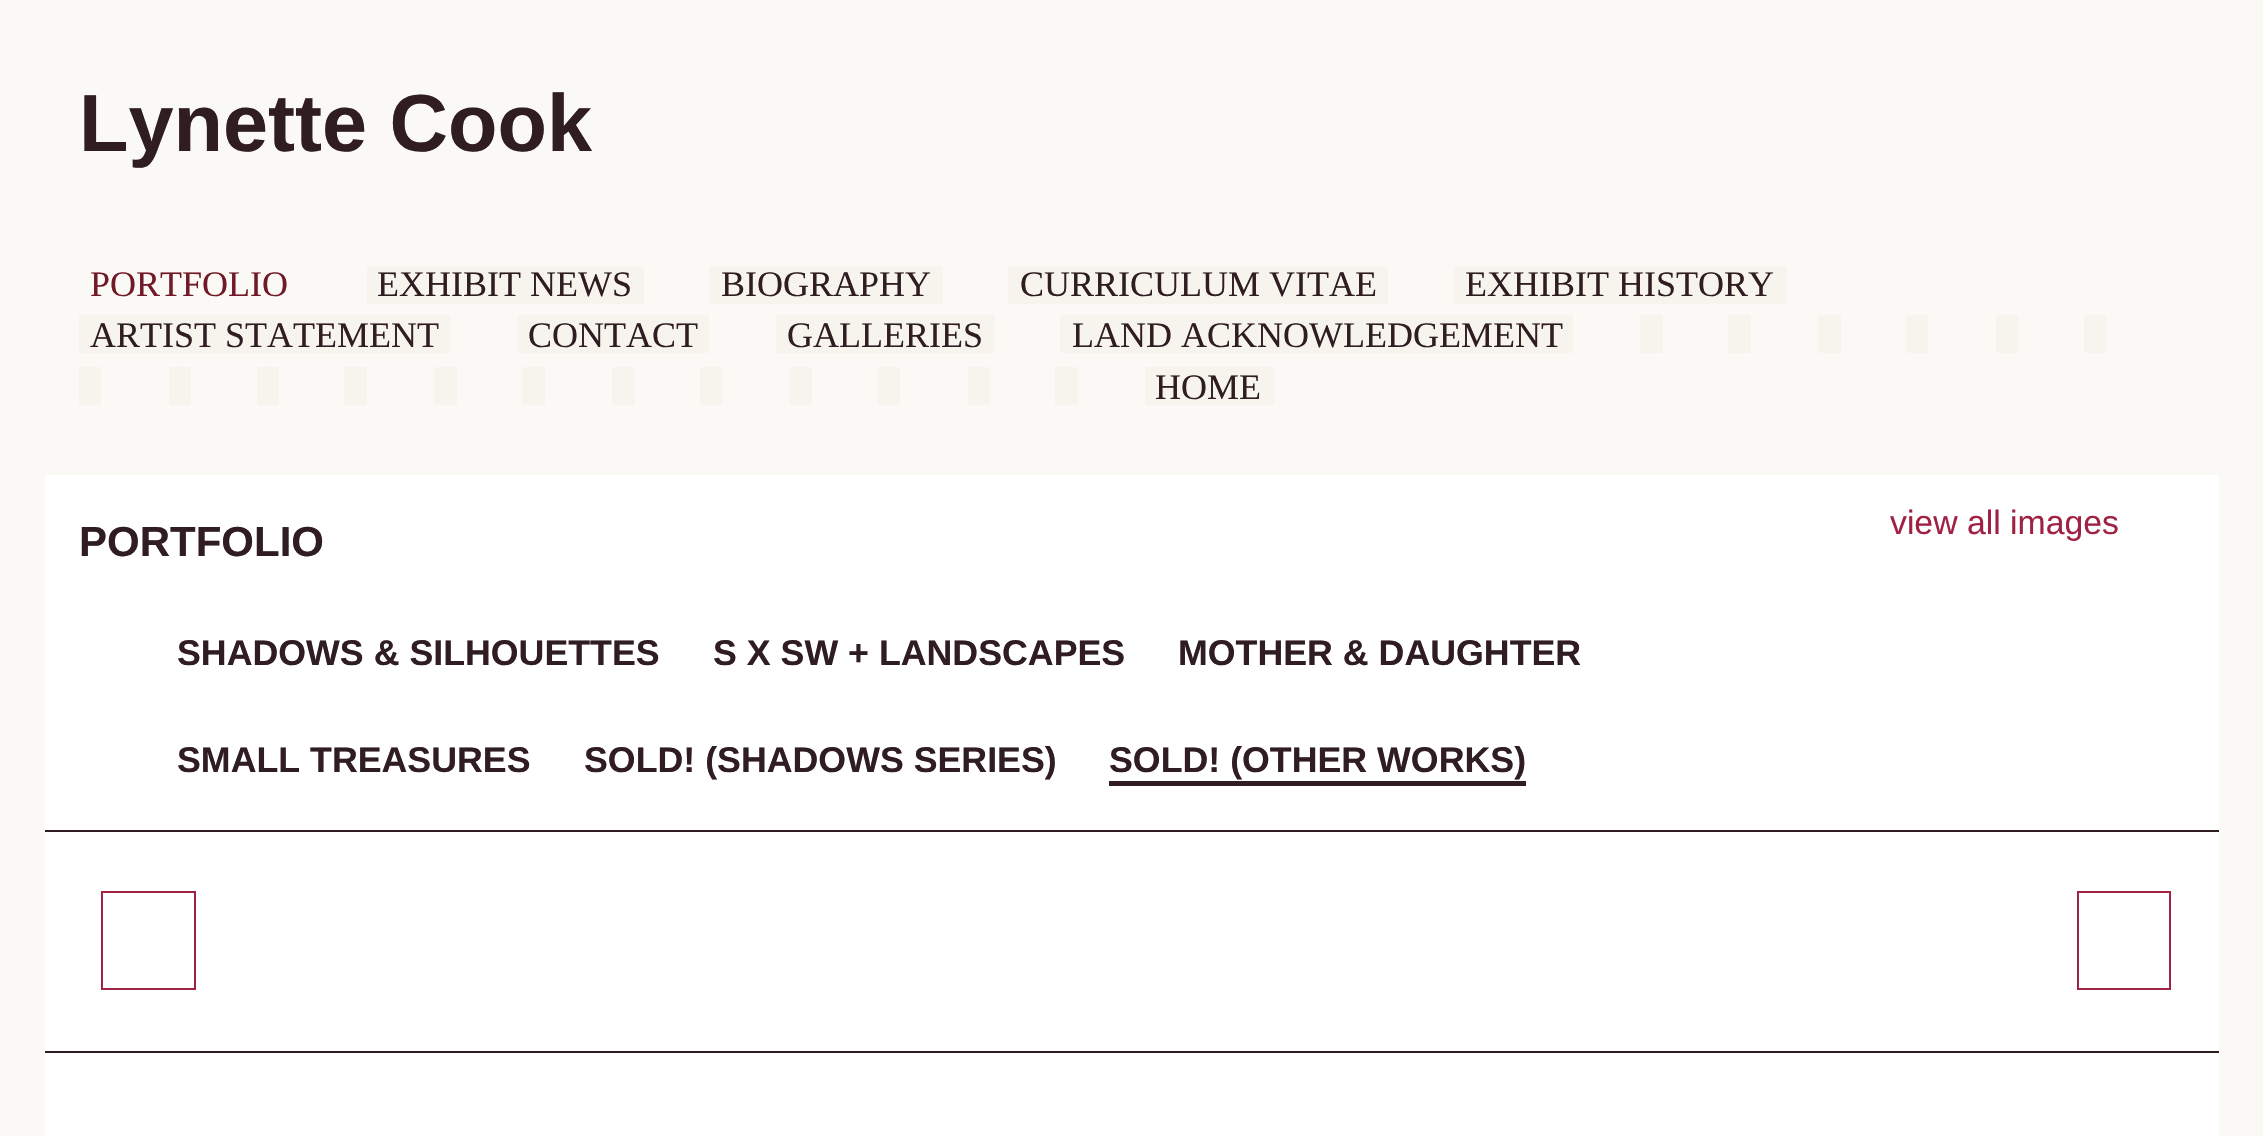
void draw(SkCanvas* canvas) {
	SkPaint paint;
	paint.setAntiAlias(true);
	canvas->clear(0xfffaf9f5);
	SkFont f1(fontMgr->matchFamilyStyle("Liberation Sans", SkFontStyle::Bold()), 81);
	f1.setSubpixel(true);
	paint.setColor(0xff2f1d22);
	canvas->drawString("Lynette Cook", 79, 151, f1, paint);
	SkFont f2(fontMgr->matchFamilyStyle("Liberation Serif", SkFontStyle::Normal()), 36);
	f2.setSubpixel(true);
	paint.setColor(0xff711927);
	canvas->drawString("PORTFOLIO", 90, 296, f2, paint);
	paint.setColor(0xfff7f4ed);
	canvas->drawRect(SkRect::MakeXYWH(367, 266, 277, 38), paint);
	paint.setColor(0xff2f1d22);
	canvas->drawString("EXHIBIT NEWS", 377, 296, f2, paint);
	paint.setColor(0xfff7f4ed);
	canvas->drawRect(SkRect::MakeXYWH(709, 266, 234, 38), paint);
	paint.setColor(0xff2f1d22);
	canvas->drawString("BIOGRAPHY", 721, 296, f2, paint);
	paint.setColor(0xfff7f4ed);
	canvas->drawRect(SkRect::MakeXYWH(1008, 266, 380, 38), paint);
	paint.setColor(0xff2f1d22);
	canvas->drawString("CURRICULUM VITAE", 1020, 296, f2, paint);
	paint.setColor(0xfff7f4ed);
	canvas->drawRect(SkRect::MakeXYWH(1454, 266, 333, 38), paint);
	paint.setColor(0xff2f1d22);
	canvas->drawString("EXHIBIT HISTORY", 1465, 296, f2, paint);
	paint.setColor(0xfff7f4ed);
	canvas->drawRect(SkRect::MakeXYWH(79, 315, 371, 38), paint);
	paint.setColor(0xff2f1d22);
	canvas->drawString("ARTIST STATEMENT", 90, 347, f2, paint);
	paint.setColor(0xfff7f4ed);
	canvas->drawRect(SkRect::MakeXYWH(518, 315, 191, 38), paint);
	paint.setColor(0xff2f1d22);
	canvas->drawString("CONTACT", 528, 347, f2, paint);
	paint.setColor(0xfff7f4ed);
	canvas->drawRect(SkRect::MakeXYWH(776, 315, 219, 38), paint);
	paint.setColor(0xff2f1d22);
	canvas->drawString("GALLERIES", 787, 347, f2, paint);
	paint.setColor(0xfff7f4ed);
	canvas->drawRect(SkRect::MakeXYWH(1060, 315, 513, 38), paint);
	paint.setColor(0xff2f1d22);
	canvas->drawString("LAND ACKNOWLEDGEMENT", 1072, 347, f2, paint);
	paint.setColor(0xfff7f4ed);
	canvas->drawRect(SkRect::MakeXYWH(1640, 315, 23, 38), paint);
	canvas->drawRect(SkRect::MakeXYWH(1728, 315, 23, 38), paint);
	canvas->drawRect(SkRect::MakeXYWH(1818, 315, 23, 38), paint);
	canvas->drawRect(SkRect::MakeXYWH(1906, 315, 22, 38), paint);
	canvas->drawRect(SkRect::MakeXYWH(1996, 315, 22, 38), paint);
	canvas->drawRect(SkRect::MakeXYWH(2084, 315, 22, 38), paint);
	canvas->drawRect(SkRect::MakeXYWH(79, 367, 22, 38), paint);
	canvas->drawRect(SkRect::MakeXYWH(169, 367, 22, 38), paint);
	canvas->drawRect(SkRect::MakeXYWH(257, 367, 22, 38), paint);
	canvas->drawRect(SkRect::MakeXYWH(344, 367, 23, 38), paint);
	canvas->drawRect(SkRect::MakeXYWH(434, 367, 23, 38), paint);
	canvas->drawRect(SkRect::MakeXYWH(522, 367, 23, 38), paint);
	canvas->drawRect(SkRect::MakeXYWH(612, 367, 23, 38), paint);
	canvas->drawRect(SkRect::MakeXYWH(700, 367, 22, 38), paint);
	canvas->drawRect(SkRect::MakeXYWH(790, 367, 22, 38), paint);
	canvas->drawRect(SkRect::MakeXYWH(878, 367, 22, 38), paint);
	canvas->drawRect(SkRect::MakeXYWH(968, 367, 22, 38), paint);
	canvas->drawRect(SkRect::MakeXYWH(1055, 367, 23, 38), paint);
	canvas->drawRect(SkRect::MakeXYWH(1145, 367, 129, 38), paint);
	paint.setColor(0xff2f1d22);
	canvas->drawString("HOME", 1155, 399, f2, paint);
	paint.setColor(0xffffffff);
	canvas->drawRect(SkRect::MakeXYWH(45, 475, 2174, 661), paint);
	SkFont f3(fontMgr->matchFamilyStyle("Liberation Sans", SkFontStyle::Bold()), 42);
	f3.setSubpixel(true);
	paint.setColor(0xff2f1d22);
	canvas->drawString("PORTFOLIO", 79, 556, f3, paint);
	SkFont f4(fontMgr->matchFamilyStyle("Liberation Sans", SkFontStyle::Bold()), 35.75);
	f4.setSubpixel(true);
	canvas->drawString("SHADOWS & SILHOUETTES", 177, 665, f4, paint);
	canvas->drawString("S X SW + LANDSCAPES", 713, 665, f4, paint);
	canvas->drawString("MOTHER & DAUGHTER", 1178, 665, f4, paint);
	canvas->drawString("SMALL TREASURES", 177, 772, f4, paint);
	canvas->drawString("SOLD! (SHADOWS SERIES)", 584, 772, f4, paint);
	canvas->drawRect(SkRect::MakeXYWH(1109, 781, 417, 5), paint);
	canvas->drawString("SOLD! (OTHER WORKS)", 1109, 772, f4, paint);
	SkFont f5(fontMgr->matchFamilyStyle("Liberation Sans", SkFontStyle::Normal()), 33.75);
	f5.setSubpixel(true);
	paint.setColor(0xffa02243);
	canvas->drawString("view all images", 1890, 534, f5, paint);
	paint.setColor(0xff2f1d22);
	canvas->drawRect(SkRect::MakeXYWH(45, 830, 2174, 2), paint);
	canvas->drawRect(SkRect::MakeXYWH(45, 1051, 2174, 2), paint);
	paint.setStroke(true);
	paint.setStrokeWidth(2);
	paint.setColor(0xffa02243);
	canvas->drawRect(SkRect::MakeXYWH(102, 892, 93, 97), paint);
	canvas->drawRect(SkRect::MakeXYWH(2078, 892, 92, 97), paint);
}
